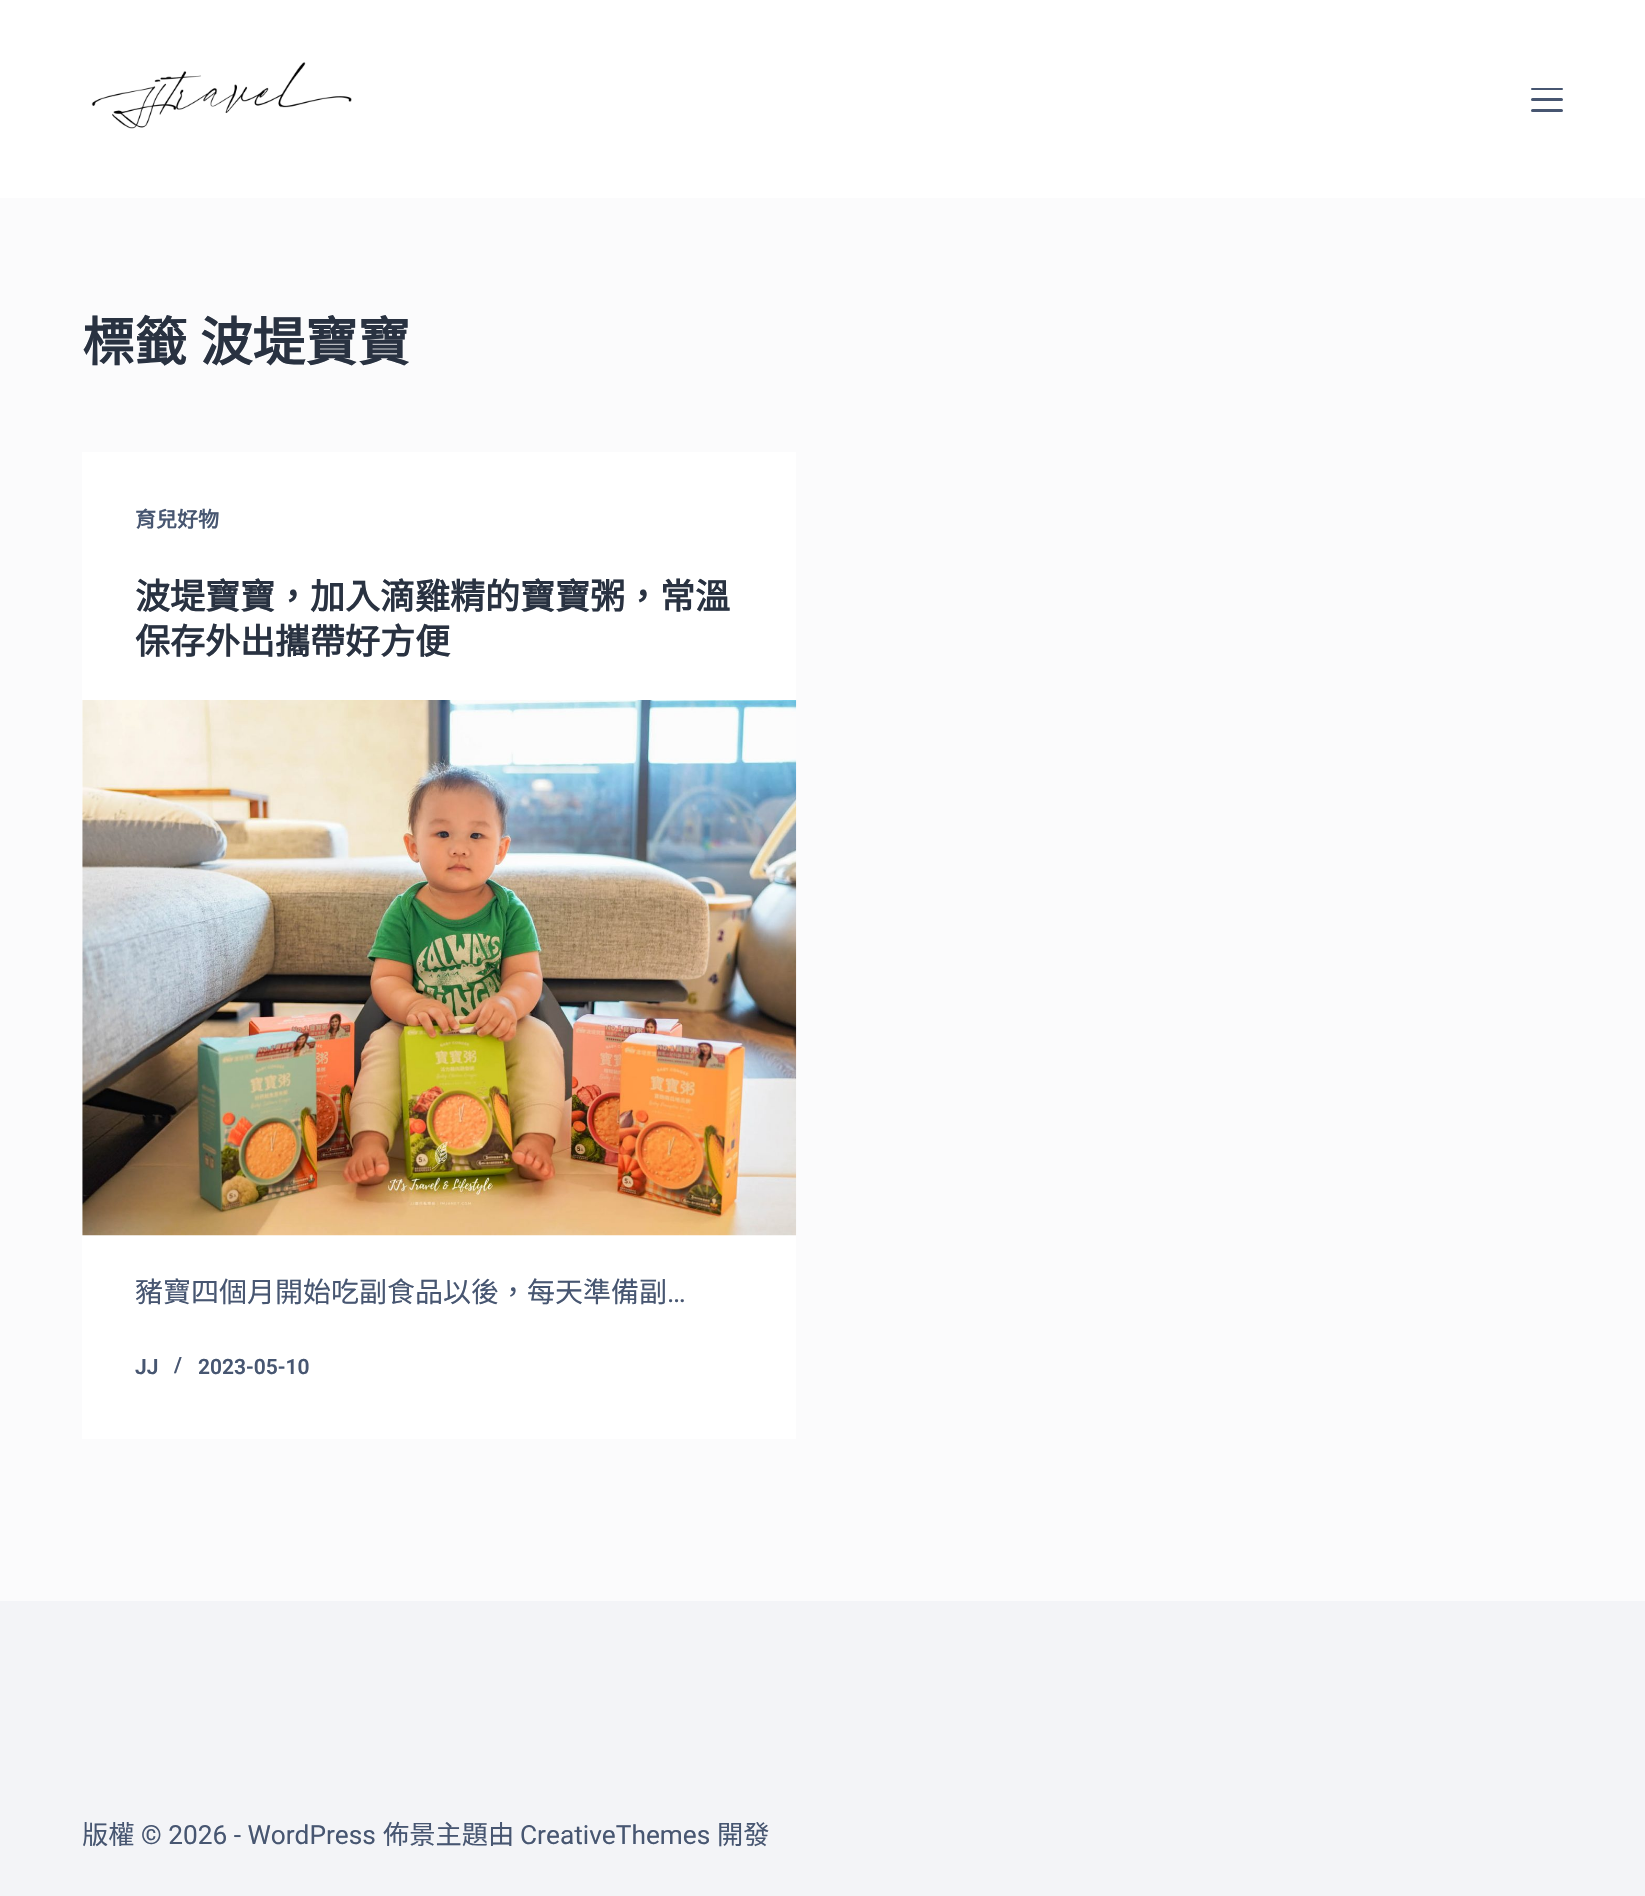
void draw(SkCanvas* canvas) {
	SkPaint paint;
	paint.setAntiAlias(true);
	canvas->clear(0xfffbfbfc);
	paint.setColor(0xffffffff);
	canvas->drawRect(SkRect::MakeXYWH(0, 0, 1645, 198), paint);
	canvas->drawImageRect(SkImages::DeferredFromEncodedData(SkData::MakeFromFileName("img1.png")), SkRect::MakeXYWH(91, 62, 261, 67), SkSamplingOptions());
	paint.setColor(0xff475671);
	canvas->drawRoundRect(SkRect::MakeXYWH(1531, 88, 32, 2), 1, 1, paint);
	canvas->drawRoundRect(SkRect::MakeXYWH(1531, 98, 32, 3), 1.5, 1.5, paint);
	canvas->drawRoundRect(SkRect::MakeXYWH(1531, 109, 32, 3), 1.5, 1.5, paint);
	SkFont f1(fontMgr->matchFamilyStyle("Noto Sans CJK TC", SkFontStyle::Bold()), 52.5);
	f1.setSubpixel(true);
	paint.setColor(0xff293241);
	canvas->drawString("標籤", 82, 361, f1, paint);
	canvas->drawString("波堤寶寶", 200, 361, f1, paint);
	paint.setColor(0xffffffff);
	canvas->drawRect(SkRect::MakeXYWH(82, 452, 714, 987), paint);
	SkFont f2(fontMgr->matchFamilyStyle("Noto Sans CJK TC", SkFontStyle::Bold()), 21);
	f2.setSubpixel(true);
	paint.setColor(0xff475671);
	canvas->drawString("育兒好物", 135, 527, f2, paint);
	SkFont f3(fontMgr->matchFamilyStyle("Noto Sans CJK TC", SkFontStyle::Bold()), 35);
	f3.setSubpixel(true);
	paint.setColor(0xff293241);
	canvas->drawString("波堤寶寶，加入滴雞精的寶寶粥，常溫", 135, 609, f3, paint);
	canvas->drawString("保存外出攜帶好方便", 135, 654, f3, paint);
	canvas->drawImageRect(SkImages::DeferredFromEncodedData(SkData::MakeFromFileName("img2.png")), SkRect::MakeXYWH(82, 700, 715, 536), SkSamplingOptions());
	SkFont f4(fontMgr->matchFamilyStyle("Noto Sans CJK TC", SkFontStyle::Normal()), 28);
	f4.setSubpixel(true);
	paint.setColor(0xff475671);
	canvas->drawString("豬寶四個月開始吃副食品以後，每天準備副", 135, 1302, f4, paint);
	SkFont f5(fontMgr->matchFamilyStyle("Roboto", SkFontStyle::Normal()), 28);
	f5.setSubpixel(true);
	canvas->drawString("…", 667, 1302, f5, paint);
	SkFont f6(fontMgr->matchFamilyStyle("Roboto", SkFontStyle(600, SkFontStyle::kNormal_Width, SkFontStyle::kUpright_Slant)), 21);
	f6.setSubpixel(true);
	canvas->drawString("JJ", 135, 1374, f6, paint);
	canvas->drawString("/", 174, 1372, f6, paint);
	canvas->drawString("2023-05-10", 198, 1374, f6, paint);
	paint.setColor(0xfff3f4f7);
	canvas->drawRect(SkRect::MakeXYWH(0, 1601, 1645, 295), paint);
	SkFont f7(fontMgr->matchFamilyStyle("Noto Sans CJK TC", SkFontStyle::Normal()), 26.25);
	f7.setSubpixel(true);
	paint.setColor(0xff475671);
	canvas->drawString("版權", 82, 1844, f7, paint);
	SkFont f8(fontMgr->matchFamilyStyle("Roboto", SkFontStyle::Normal()), 26.25);
	f8.setSubpixel(true);
	canvas->drawString("© 2026 - WordPress", 141, 1844, f8, paint);
	canvas->drawString("佈景主題由", 383, 1844, f7, paint);
	canvas->drawString("CreativeThemes", 520, 1844, f8, paint);
	canvas->drawString("開發", 717, 1844, f7, paint);
}
